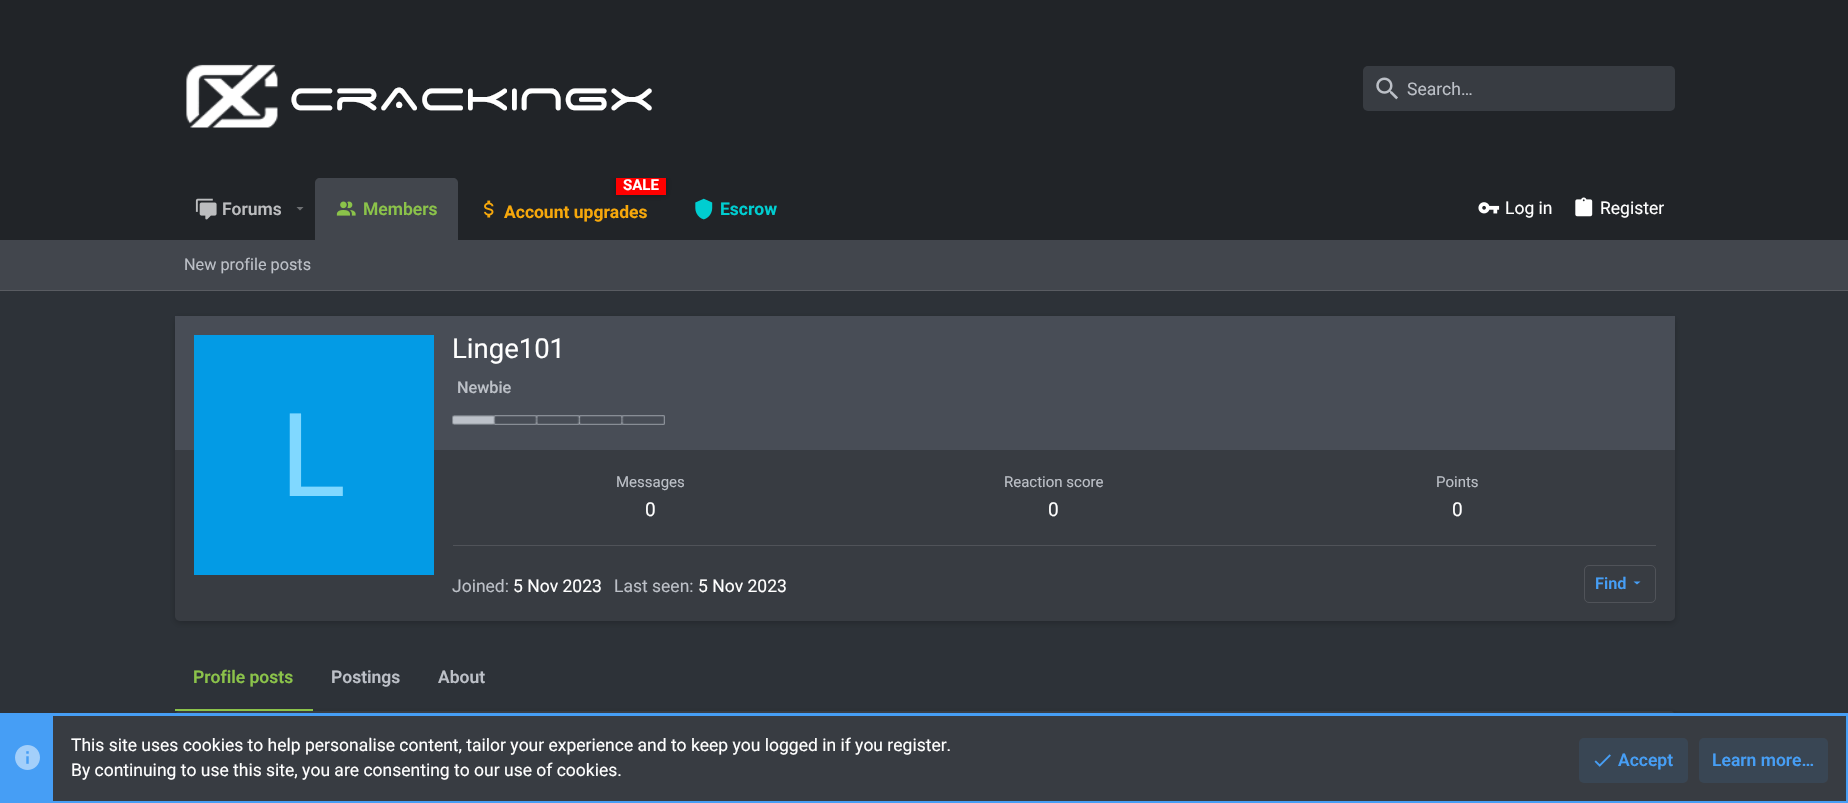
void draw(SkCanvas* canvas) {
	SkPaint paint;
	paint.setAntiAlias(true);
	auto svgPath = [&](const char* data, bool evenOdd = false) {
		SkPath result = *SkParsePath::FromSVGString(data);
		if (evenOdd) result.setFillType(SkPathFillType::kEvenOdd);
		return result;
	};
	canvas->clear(0xff2d3238);
	paint.setColor(0xff212428);
	canvas->drawRect(SkRect::MakeXYWH(0, 0, 1848, 240), paint);
	canvas->drawImageRect(SkImages::DeferredFromEncodedData(SkData::MakeFromFileName("img1.png")), SkRect::MakeXYWH(186, 64, 92, 64), SkSamplingOptions());
	SkFont f1(fontMgr->matchFamilyStyle("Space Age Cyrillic", SkFontStyle::Normal()), 50);
	f1.setSubpixel(true);
	paint.setColor(0xffffffff);
	canvas->drawString("CrACKINGx", 289, 114, f1, paint);
	paint.setColor(0xff383c42);
	canvas->drawRoundRect(SkRect::MakeXYWH(1363, 66, 312, 45), 5, 5, paint);
	canvas->drawImageRect(SkImages::DeferredFromEncodedData(SkData::MakeFromFileName("img2.png")), SkRect::MakeXYWH(1376, 77, 22, 23), SkSamplingOptions());
	SkFont f2(fontMgr->matchFamilyStyle("Roboto", SkFontStyle::Normal()), 17.5);
	f2.setSubpixel(true);
	paint.setColor(0xffbcc0c7);
	canvas->drawString("Search…", 1407, 95, f2, paint);
	canvas->drawImageRect(SkImages::DeferredFromEncodedData(SkData::MakeFromFileName("img3.png")), SkRect::MakeXYWH(195, 198, 22, 22), SkSamplingOptions());
	SkFont f3(fontMgr->matchFamilyStyle("Roboto", SkFontStyle(600, SkFontStyle::kNormal_Width, SkFontStyle::kUpright_Slant)), 17.5);
	f3.setSubpixel(true);
	paint.setColor(0xffbcbdbf);
	canvas->drawString("Forums", 222, 215, f3, paint);
	paint.setColor(0xff6f7174);
	canvas->drawPath(svgPath("M296.5 207L300 210.5L303.5 207Z"), paint);
	paint.setColor(0xff42464d);
	canvas->drawPath(svgPath("M320 178H453C456 178 458 180 458 183V240H315V183C315 180 317 178 320 178Z"), paint);
	canvas->drawImageRect(SkImages::DeferredFromEncodedData(SkData::MakeFromFileName("img4.png")), SkRect::MakeXYWH(336, 201, 20, 15), SkSamplingOptions());
	paint.setColor(0xff8bc34a);
	canvas->drawString("Members", 363, 215, f3, paint);
	canvas->save();
	canvas->clipRect(SkRect::MakeXYWH(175, 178, 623, 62));
	paint.setColor(0x4d000000);
	paint.setMaskFilter(SkMaskFilter::MakeBlur(kNormal_SkBlurStyle, 3));
	canvas->drawRect(SkRect::MakeXYWH(616, 175, 50, 20), paint);
	paint.setMaskFilter(nullptr);
	canvas->restore();
	paint.setColor(0xffff0000);
	canvas->drawRect(SkRect::MakeXYWH(616, 178, 50, 17), paint);
	SkFont f4(fontMgr->matchFamilyStyle("Roboto", SkFontStyle::Bold()), 15);
	f4.setSubpixel(true);
	paint.setColor(0xffffffff);
	canvas->drawString("SALE", 623, 190, f4, paint);
	canvas->drawImageRect(SkImages::DeferredFromEncodedData(SkData::MakeFromFileName("img5.png")), SkRect::MakeXYWH(484, 200, 10, 18), SkSamplingOptions());
	SkFont f5(fontMgr->matchFamilyStyle("Roboto", SkFontStyle::Bold()), 17.5);
	f5.setSubpixel(true);
	paint.setColor(0xfff7a80b);
	canvas->drawString("Account upgrades", 504, 218, f5, paint);
	canvas->drawImageRect(SkImages::DeferredFromEncodedData(SkData::MakeFromFileName("img6.png")), SkRect::MakeXYWH(695, 198, 18, 22), SkSamplingOptions());
	paint.setColor(0xff00ced1);
	canvas->drawString("Escrow", 720, 215, f5, paint);
	canvas->drawImageRect(SkImages::DeferredFromEncodedData(SkData::MakeFromFileName("img7.png")), SkRect::MakeXYWH(1478, 202, 22, 12), SkSamplingOptions());
	paint.setColor(0xffffffff);
	canvas->drawString("Log in", 1505, 214, f2, paint);
	canvas->drawImageRect(SkImages::DeferredFromEncodedData(SkData::MakeFromFileName("img8.png")), SkRect::MakeXYWH(1575, 197, 18, 20), SkSamplingOptions());
	canvas->drawString("Register", 1600, 214, f2, paint);
	paint.setColor(0xff42464d);
	canvas->drawRect(SkRect::MakeXYWH(0, 240, 1848, 50), paint);
	paint.setColor(0xff595c62);
	canvas->drawRect(SkRect::MakeXYWH(0, 290, 1848, 1), paint);
	SkFont f6(fontMgr->matchFamilyStyle("Roboto", SkFontStyle::Normal()), 16.25);
	f6.setSubpixel(true);
	paint.setColor(0xffbcc0c7);
	canvas->drawString("New profile posts", 184, 270, f6, paint);
	paint.setColor(0x33000000);
	paint.setMaskFilter(SkMaskFilter::MakeBlur(kNormal_SkBlurStyle, 3));
	canvas->drawRoundRect(SkRect::MakeXYWH(175, 318, 1500, 305), 5, 5, paint);
	paint.setMaskFilter(nullptr);
	paint.setColor(0xff383c42);
	canvas->drawRoundRect(SkRect::MakeXYWH(175, 316, 1500, 305), 5, 5, paint);
	paint.setColor(0xff484d56);
	canvas->drawRect(SkRect::MakeXYWH(175, 316, 1500, 134), paint);
	SkFont f7(fontMgr->matchFamilyStyle("Roboto", SkFontStyle::Normal()), 27.5);
	f7.setSubpixel(true);
	paint.setColor(0xffffffff);
	canvas->drawString("Linge101", 452, 358, f7, paint);
	SkFont f8(fontMgr->matchFamilyStyle("Roboto", SkFontStyle(500, SkFontStyle::kNormal_Width, SkFontStyle::kUpright_Slant)), 16.25);
	f8.setSubpixel(true);
	paint.setColor(0xffbcc0c7);
	canvas->drawString("Newbie", 457, 393, f8, paint);
	canvas->drawImageRect(SkImages::DeferredFromEncodedData(SkData::MakeFromFileName("img9.png")), SkRect::MakeXYWH(452, 415, 213, 10), SkSamplingOptions());
	paint.setColor(0xff039be5);
	canvas->drawRect(SkRect::MakeXYWH(194, 335, 240, 240), paint);
	SkFont f9(fontMgr->matchFamilyStyle("Liberation Sans", SkFontStyle::Normal()), 120);
	f9.setSubpixel(true);
	paint.setColor(0xff80d8ff);
	canvas->drawString("L", 280, 496, f9, paint);
	SkFont f10(fontMgr->matchFamilyStyle("Roboto", SkFontStyle::Normal()), 15);
	f10.setSubpixel(true);
	paint.setColor(0xffbcc0c7);
	canvas->drawString("Messages", 616, 487, f10, paint);
	SkFont f11(fontMgr->matchFamilyStyle("Roboto", SkFontStyle::Normal()), 19);
	f11.setSubpixel(true);
	paint.setColor(0xffffffff);
	canvas->drawString("0", 645, 516, f11, paint);
	paint.setColor(0xffbcc0c7);
	canvas->drawString("Reaction score", 1004, 487, f10, paint);
	paint.setColor(0xffffffff);
	canvas->drawString("0", 1048, 516, f11, paint);
	paint.setColor(0xffbcc0c7);
	canvas->drawString("Points", 1436, 487, f10, paint);
	paint.setColor(0xffffffff);
	canvas->drawString("0", 1452, 516, f11, paint);
	paint.setColor(0xff505359);
	canvas->drawRect(SkRect::MakeXYWH(453, 545, 1203, 1), paint);
	paint.setColor(0xffbcc0c7);
	canvas->drawString("Joined:", 452, 592, f2, paint);
	paint.setColor(0xffffffff);
	canvas->drawString("5 Nov 2023", 513, 592, f2, paint);
	paint.setColor(0xffbcc0c7);
	canvas->drawString("Last seen:", 614, 592, f2, paint);
	paint.setColor(0xffffffff);
	canvas->drawString("5 Nov 2023", 698, 592, f2, paint);
	paint.setStroke(true);
	paint.setStrokeWidth(1);
	paint.setColor(0xff505359);
	canvas->drawRoundRect(SkRect::MakeXYWH(1584.5, 565.5, 71, 37), 4.5, 4.5, paint);
	SkFont f12(fontMgr->matchFamilyStyle("Roboto", SkFontStyle(600, SkFontStyle::kNormal_Width, SkFontStyle::kUpright_Slant)), 16.25);
	f12.setSubpixel(true);
	paint.setStroke(false);
	paint.setColor(0xff469ef5);
	canvas->drawString("Find", 1595, 589, f12, paint);
	canvas->drawPath(svgPath("M1633.5 581.5L1637 584.5L1640.5 581.5Z"), paint);
	paint.setColor(0x33000000);
	paint.setMaskFilter(SkMaskFilter::MakeBlur(kNormal_SkBlurStyle, 3));
	canvas->drawRoundRect(SkRect::MakeXYWH(175, 713, 1500, 61), 5, 5, paint);
	paint.setMaskFilter(nullptr);
	paint.setColor(0xff8bc34a);
	canvas->drawRect(SkRect::MakeXYWH(175, 709, 138, 2), paint);
	canvas->drawString("Profile posts", 193, 683, f3, paint);
	paint.setColor(0xffbcc0c7);
	canvas->drawString("Postings", 331, 683, f3, paint);
	canvas->drawString("About", 438, 683, f3, paint);
	paint.setColor(0xff383c42);
	canvas->drawRoundRect(SkRect::MakeXYWH(175, 711, 1500, 62), 5, 5, paint);
	canvas->drawRect(SkRect::MakeXYWH(53, 716, 1793, 85), paint);
	paint.setStroke(true);
	paint.setStrokeWidth(3);
	paint.setColor(0xff469ef5);
	canvas->drawRect(SkRect::MakeXYWH(1.5, 714.5, 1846, 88), paint);
	paint.setStroke(false);
	canvas->drawRect(SkRect::MakeXYWH(3, 716, 50, 85), paint);
	canvas->drawImageRect(SkImages::DeferredFromEncodedData(SkData::MakeFromFileName("img10.png")), SkRect::MakeXYWH(15, 745, 25, 25), SkSamplingOptions());
	paint.setColor(0xffffffff);
	canvas->drawString("This site uses cookies to help personalise content, tailor your experience and to keep you logged in if you register.", 71, 751, f2, paint);
	canvas->drawString("By continuing to use this site, you are consenting to our use of cookies.", 71, 776, f2, paint);
	paint.setColor(0xff394654);
	canvas->drawRoundRect(SkRect::MakeXYWH(1579, 738, 109, 45), 5, 5, paint);
	canvas->drawImageRect(SkImages::DeferredFromEncodedData(SkData::MakeFromFileName("img11.png")), SkRect::MakeXYWH(1594, 754, 17, 13), SkSamplingOptions());
	paint.setColor(0xff469ef5);
	canvas->drawString("Accept", 1618, 766, f3, paint);
	paint.setColor(0xff394654);
	canvas->drawRoundRect(SkRect::MakeXYWH(1699, 738, 129, 45), 5, 5, paint);
	paint.setColor(0xff469ef5);
	canvas->drawString("Learn more…", 1712, 766, f3, paint);
}
